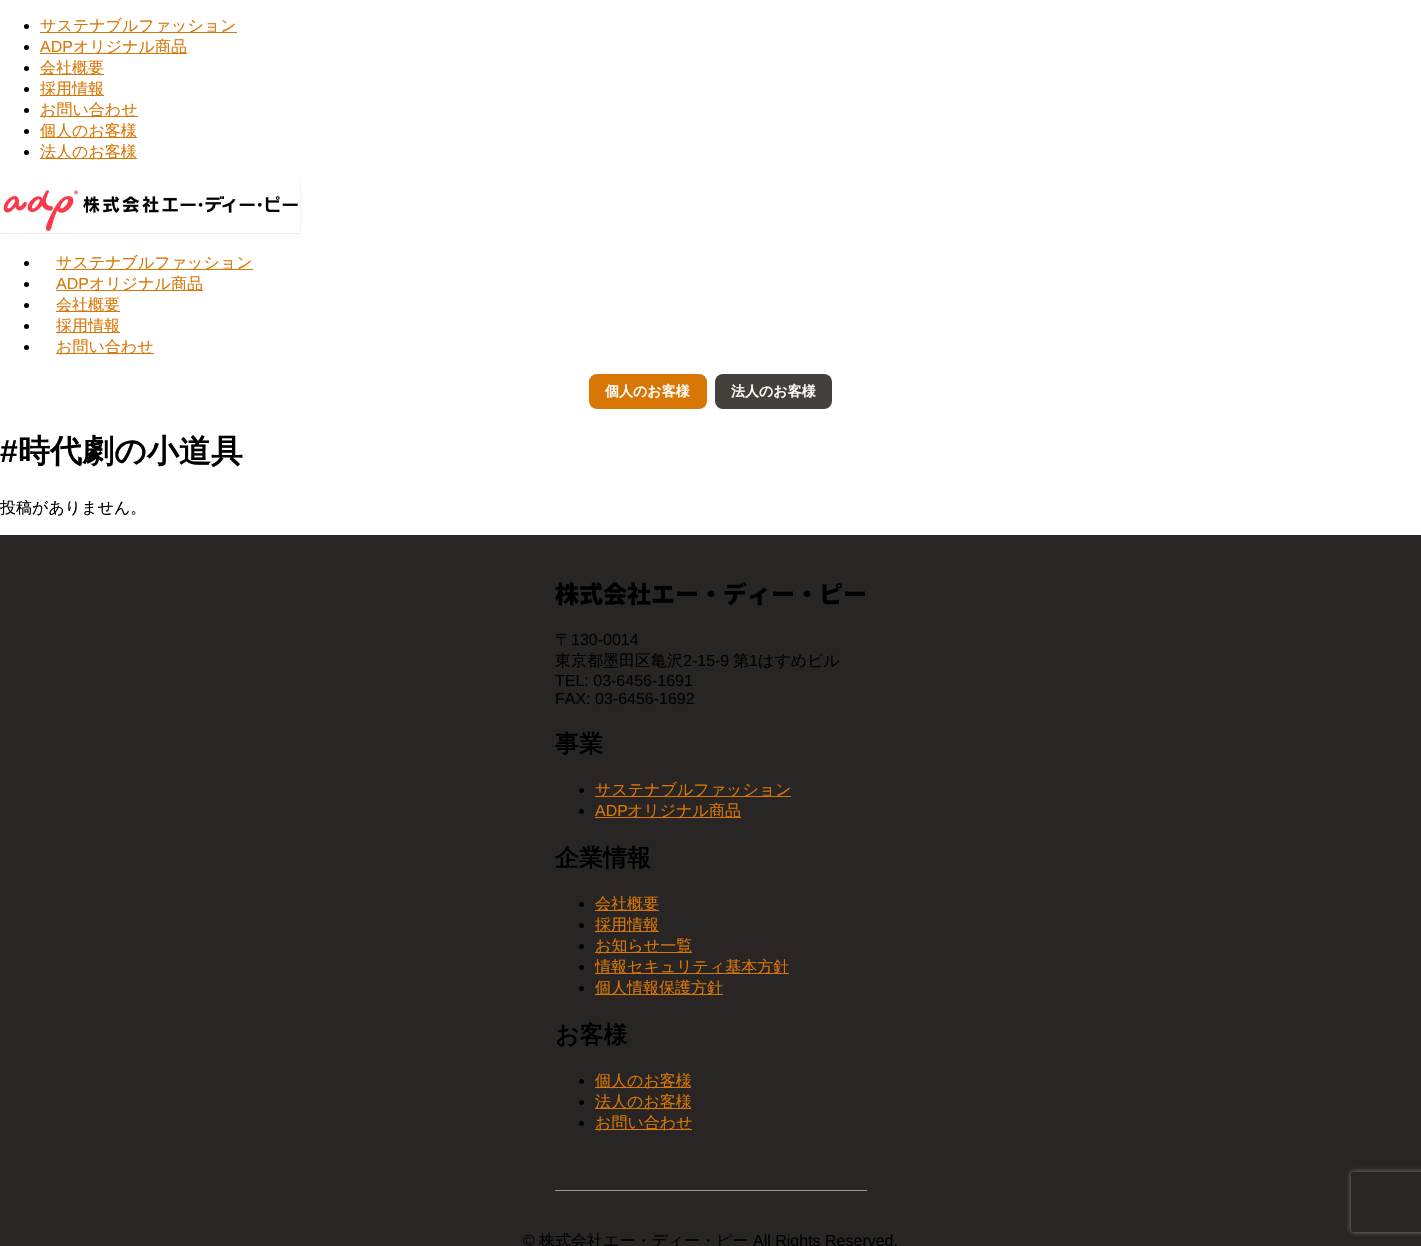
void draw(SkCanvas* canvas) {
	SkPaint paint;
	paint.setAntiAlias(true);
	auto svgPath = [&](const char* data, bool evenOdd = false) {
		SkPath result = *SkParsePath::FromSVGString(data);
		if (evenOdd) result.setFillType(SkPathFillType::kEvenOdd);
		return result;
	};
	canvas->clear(0xffffffff);
	paint.setColor(0xff000000);
	canvas->drawCircle(26.5, 26.5, 2.5, paint);
	paint.setColor(0xffd97706);
	canvas->drawRect(SkRect::MakeXYWH(40, 32, 197, 1), paint);
	SkFont f1(fontMgr->matchFamilyStyle("WenQuanYi Zen Hei", SkFontStyle(500, SkFontStyle::kNormal_Width, SkFontStyle::kUpright_Slant)), 16);
	f1.setSubpixel(true);
	canvas->drawString("サステナブルファッション", 40, 31, f1, paint);
	paint.setColor(0xff000000);
	canvas->drawCircle(26.5, 47.5, 2.5, paint);
	SkFont f2(fontMgr->matchFamilyStyle("Liberation Sans", SkFontStyle::Normal()), 16);
	f2.setSubpixel(true);
	paint.setColor(0xffd97706);
	canvas->drawString("ADP", 40, 52, f2, paint);
	canvas->drawRect(SkRect::MakeXYWH(40, 53, 147, 1), paint);
	canvas->drawString("オリジナル商品", 73, 52, f1, paint);
	paint.setColor(0xff000000);
	canvas->drawCircle(26.5, 68.5, 2.5, paint);
	paint.setColor(0xffd97706);
	canvas->drawRect(SkRect::MakeXYWH(40, 74, 64, 1), paint);
	canvas->drawString("会社概要", 40, 73, f1, paint);
	paint.setColor(0xff000000);
	canvas->drawCircle(26.5, 89.5, 2.5, paint);
	paint.setColor(0xffd97706);
	canvas->drawRect(SkRect::MakeXYWH(40, 95, 64, 1), paint);
	canvas->drawString("採用情報", 40, 94, f1, paint);
	paint.setColor(0xff000000);
	canvas->drawCircle(26.5, 110.5, 2.5, paint);
	paint.setColor(0xffd97706);
	canvas->drawRect(SkRect::MakeXYWH(40, 116, 98, 1), paint);
	canvas->drawString("お問い合わせ", 40, 115, f1, paint);
	paint.setColor(0xff000000);
	canvas->drawCircle(26.5, 131.5, 2.5, paint);
	paint.setColor(0xffd97706);
	canvas->drawRect(SkRect::MakeXYWH(40, 137, 97, 1), paint);
	canvas->drawString("個人のお客様", 40, 136, f1, paint);
	paint.setColor(0xff000000);
	canvas->drawCircle(26.5, 152.5, 2.5, paint);
	paint.setColor(0xffd97706);
	canvas->drawRect(SkRect::MakeXYWH(40, 158, 97, 1), paint);
	canvas->drawString("法人のお客様", 40, 157, f1, paint);
	canvas->drawImageRect(SkImages::DeferredFromEncodedData(SkData::MakeFromFileName("img1.png")), SkRect::MakeXYWH(0, 181, 301, 53), SkSamplingOptions());
	paint.setColor(0xff000000);
	canvas->drawCircle(26.5, 263.5, 2.5, paint);
	paint.setColor(0xffd97706);
	canvas->drawRect(SkRect::MakeXYWH(56, 269, 197, 1), paint);
	canvas->drawString("サステナブルファッション", 56, 268, f1, paint);
	paint.setColor(0xff000000);
	canvas->drawCircle(26.5, 284.5, 2.5, paint);
	paint.setColor(0xffd97706);
	canvas->drawString("ADP", 56, 289, f2, paint);
	canvas->drawRect(SkRect::MakeXYWH(56, 290, 147, 1), paint);
	canvas->drawString("オリジナル商品", 89, 289, f1, paint);
	paint.setColor(0xff000000);
	canvas->drawCircle(26.5, 305.5, 2.5, paint);
	paint.setColor(0xffd97706);
	canvas->drawRect(SkRect::MakeXYWH(56, 311, 64, 1), paint);
	canvas->drawString("会社概要", 56, 310, f1, paint);
	paint.setColor(0xff000000);
	canvas->drawCircle(26.5, 326.5, 2.5, paint);
	paint.setColor(0xffd97706);
	canvas->drawRect(SkRect::MakeXYWH(56, 332, 64, 1), paint);
	canvas->drawString("採用情報", 56, 331, f1, paint);
	paint.setColor(0xff000000);
	canvas->drawCircle(26.5, 347.5, 2.5, paint);
	paint.setColor(0xffd97706);
	canvas->drawRect(SkRect::MakeXYWH(56, 353, 98, 1), paint);
	canvas->drawString("お問い合わせ", 56, 352, f1, paint);
	canvas->drawRoundRect(SkRect::MakeXYWH(589, 374, 118, 35), 8, 8, paint);
	SkFont f3(fontMgr->matchFamilyStyle("WenQuanYi Zen Hei", SkFontStyle::Bold()), 14);
	f3.setSubpixel(true);
	paint.setColor(0xffffffff);
	canvas->drawString("個人のお客様", 605, 396, f3, paint);
	paint.setColor(0xff44403c);
	canvas->drawRoundRect(SkRect::MakeXYWH(715, 374, 117, 35), 8, 8, paint);
	paint.setColor(0xffffffff);
	canvas->drawString("法人のお客様", 731, 396, f3, paint);
	SkFont f4(fontMgr->matchFamilyStyle("Liberation Sans", SkFontStyle::Bold()), 32);
	f4.setSubpixel(true);
	paint.setColor(0xff000000);
	canvas->drawString("#", 0, 462, f4, paint);
	SkFont f5(fontMgr->matchFamilyStyle("WenQuanYi Zen Hei", SkFontStyle::Bold()), 32);
	f5.setSubpixel(true);
	canvas->drawString("時代劇の小道具", 18, 462, f5, paint);
	canvas->drawString("投稿がありません。", 0, 513, f1, paint);
	paint.setColor(0xff292524);
	canvas->drawRect(SkRect::MakeXYWH(0, 535, 1421, 711), paint);
	paint.setColor(0xff999999);
	canvas->drawRect(SkRect::MakeXYWH(555, 1190, 312, 1), paint);
	SkFont f6(fontMgr->matchFamilyStyle("Noto Sans JP", SkFontStyle(900, SkFontStyle::kNormal_Width, SkFontStyle::kUpright_Slant)), 24);
	f6.setSubpixel(true);
	paint.setColor(0xff000000);
	canvas->drawString("株式会社エー・ディー・ピー", 555, 603, f6, paint);
	canvas->drawString("〒", 555, 645, f1, paint);
	canvas->drawString("130-0014", 571, 645, f2, paint);
	canvas->drawString("東京都墨田区亀沢", 555, 666, f1, paint);
	canvas->drawString("2-15-9", 683, 666, f2, paint);
	canvas->drawString("第", 733, 666, f1, paint);
	canvas->drawString("1", 749, 666, f2, paint);
	canvas->drawString("はすめビル", 758, 666, f1, paint);
	canvas->drawString("TEL: 03-6456-1691", 555, 686, f2, paint);
	canvas->drawString("FAX: 03-6456-1692", 555, 704, f2, paint);
	SkFont f7(fontMgr->matchFamilyStyle("WenQuanYi Zen Hei", SkFontStyle::Bold()), 24);
	f7.setSubpixel(true);
	canvas->drawString("事業", 555, 752, f7, paint);
	canvas->drawCircle(581.5, 790.5, 2.5, paint);
	paint.setColor(0xffd97706);
	canvas->drawRect(SkRect::MakeXYWH(595, 796, 196, 1), paint);
	canvas->drawString("サステナブルファッション", 595, 795, f1, paint);
	paint.setColor(0xff000000);
	canvas->drawCircle(581.5, 811.5, 2.5, paint);
	paint.setColor(0xffd97706);
	canvas->drawString("ADP", 595, 816, f2, paint);
	canvas->drawRect(SkRect::MakeXYWH(595, 817, 146, 1), paint);
	canvas->drawString("オリジナル商品", 627, 816, f1, paint);
	paint.setColor(0xff000000);
	canvas->drawString("企業情報", 555, 866, f7, paint);
	canvas->drawCircle(581.5, 904.5, 2.5, paint);
	paint.setColor(0xffd97706);
	canvas->drawRect(SkRect::MakeXYWH(595, 910, 64, 1), paint);
	canvas->drawString("会社概要", 595, 909, f1, paint);
	paint.setColor(0xff000000);
	canvas->drawCircle(581.5, 925.5, 2.5, paint);
	paint.setColor(0xffd97706);
	canvas->drawRect(SkRect::MakeXYWH(595, 931, 64, 1), paint);
	canvas->drawString("採用情報", 595, 930, f1, paint);
	paint.setColor(0xff000000);
	canvas->drawCircle(581.5, 946.5, 2.5, paint);
	paint.setColor(0xffd97706);
	canvas->drawRect(SkRect::MakeXYWH(595, 952, 97, 1), paint);
	canvas->drawString("お知らせ一覧", 595, 951, f1, paint);
	paint.setColor(0xff000000);
	canvas->drawCircle(581.5, 967.5, 2.5, paint);
	paint.setColor(0xffd97706);
	canvas->drawRect(SkRect::MakeXYWH(595, 973, 194, 1), paint);
	canvas->drawString("情報セキュリティ基本方針", 595, 972, f1, paint);
	paint.setColor(0xff000000);
	canvas->drawCircle(581.5, 988.5, 2.5, paint);
	paint.setColor(0xffd97706);
	canvas->drawRect(SkRect::MakeXYWH(595, 994, 128, 1), paint);
	canvas->drawString("個人情報保護方針", 595, 993, f1, paint);
	paint.setColor(0xff000000);
	canvas->drawString("お客様", 555, 1043, f7, paint);
	canvas->drawCircle(581.5, 1081.5, 2.5, paint);
	paint.setColor(0xffd97706);
	canvas->drawRect(SkRect::MakeXYWH(595, 1087, 96, 1), paint);
	canvas->drawString("個人のお客様", 595, 1086, f1, paint);
	paint.setColor(0xff000000);
	canvas->drawCircle(581.5, 1102.5, 2.5, paint);
	paint.setColor(0xffd97706);
	canvas->drawRect(SkRect::MakeXYWH(595, 1108, 96, 1), paint);
	canvas->drawString("法人のお客様", 595, 1107, f1, paint);
	paint.setColor(0xff000000);
	canvas->drawCircle(581.5, 1123.5, 2.5, paint);
	paint.setColor(0xffd97706);
	canvas->drawRect(SkRect::MakeXYWH(595, 1129, 97, 1), paint);
	canvas->drawString("お問い合わせ", 595, 1128, f1, paint);
	paint.setColor(0xff000000);
	canvas->drawString("©", 523, 1246, f2, paint);
	canvas->drawString("株式会社エー・ディー・ピー", 539, 1246, f1, paint);
	canvas->drawString("All Rights Reserved.", 753, 1246, f2, paint);
	canvas->save();
	canvas->clipPath(svgPath("M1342 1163H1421V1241H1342ZM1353 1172H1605C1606 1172 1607 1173 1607 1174V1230C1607 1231 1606 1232 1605 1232H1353C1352 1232 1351 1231 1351 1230V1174C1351 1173 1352 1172 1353 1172Z", true), true);
	paint.setColor(0xff808080);
	paint.setMaskFilter(SkMaskFilter::MakeBlur(kNormal_SkBlurStyle, 2.5));
	canvas->drawRoundRect(SkRect::MakeXYWH(1351, 1172, 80, 60), 2, 2, paint);
	paint.setMaskFilter(nullptr);
	canvas->restore();
}
